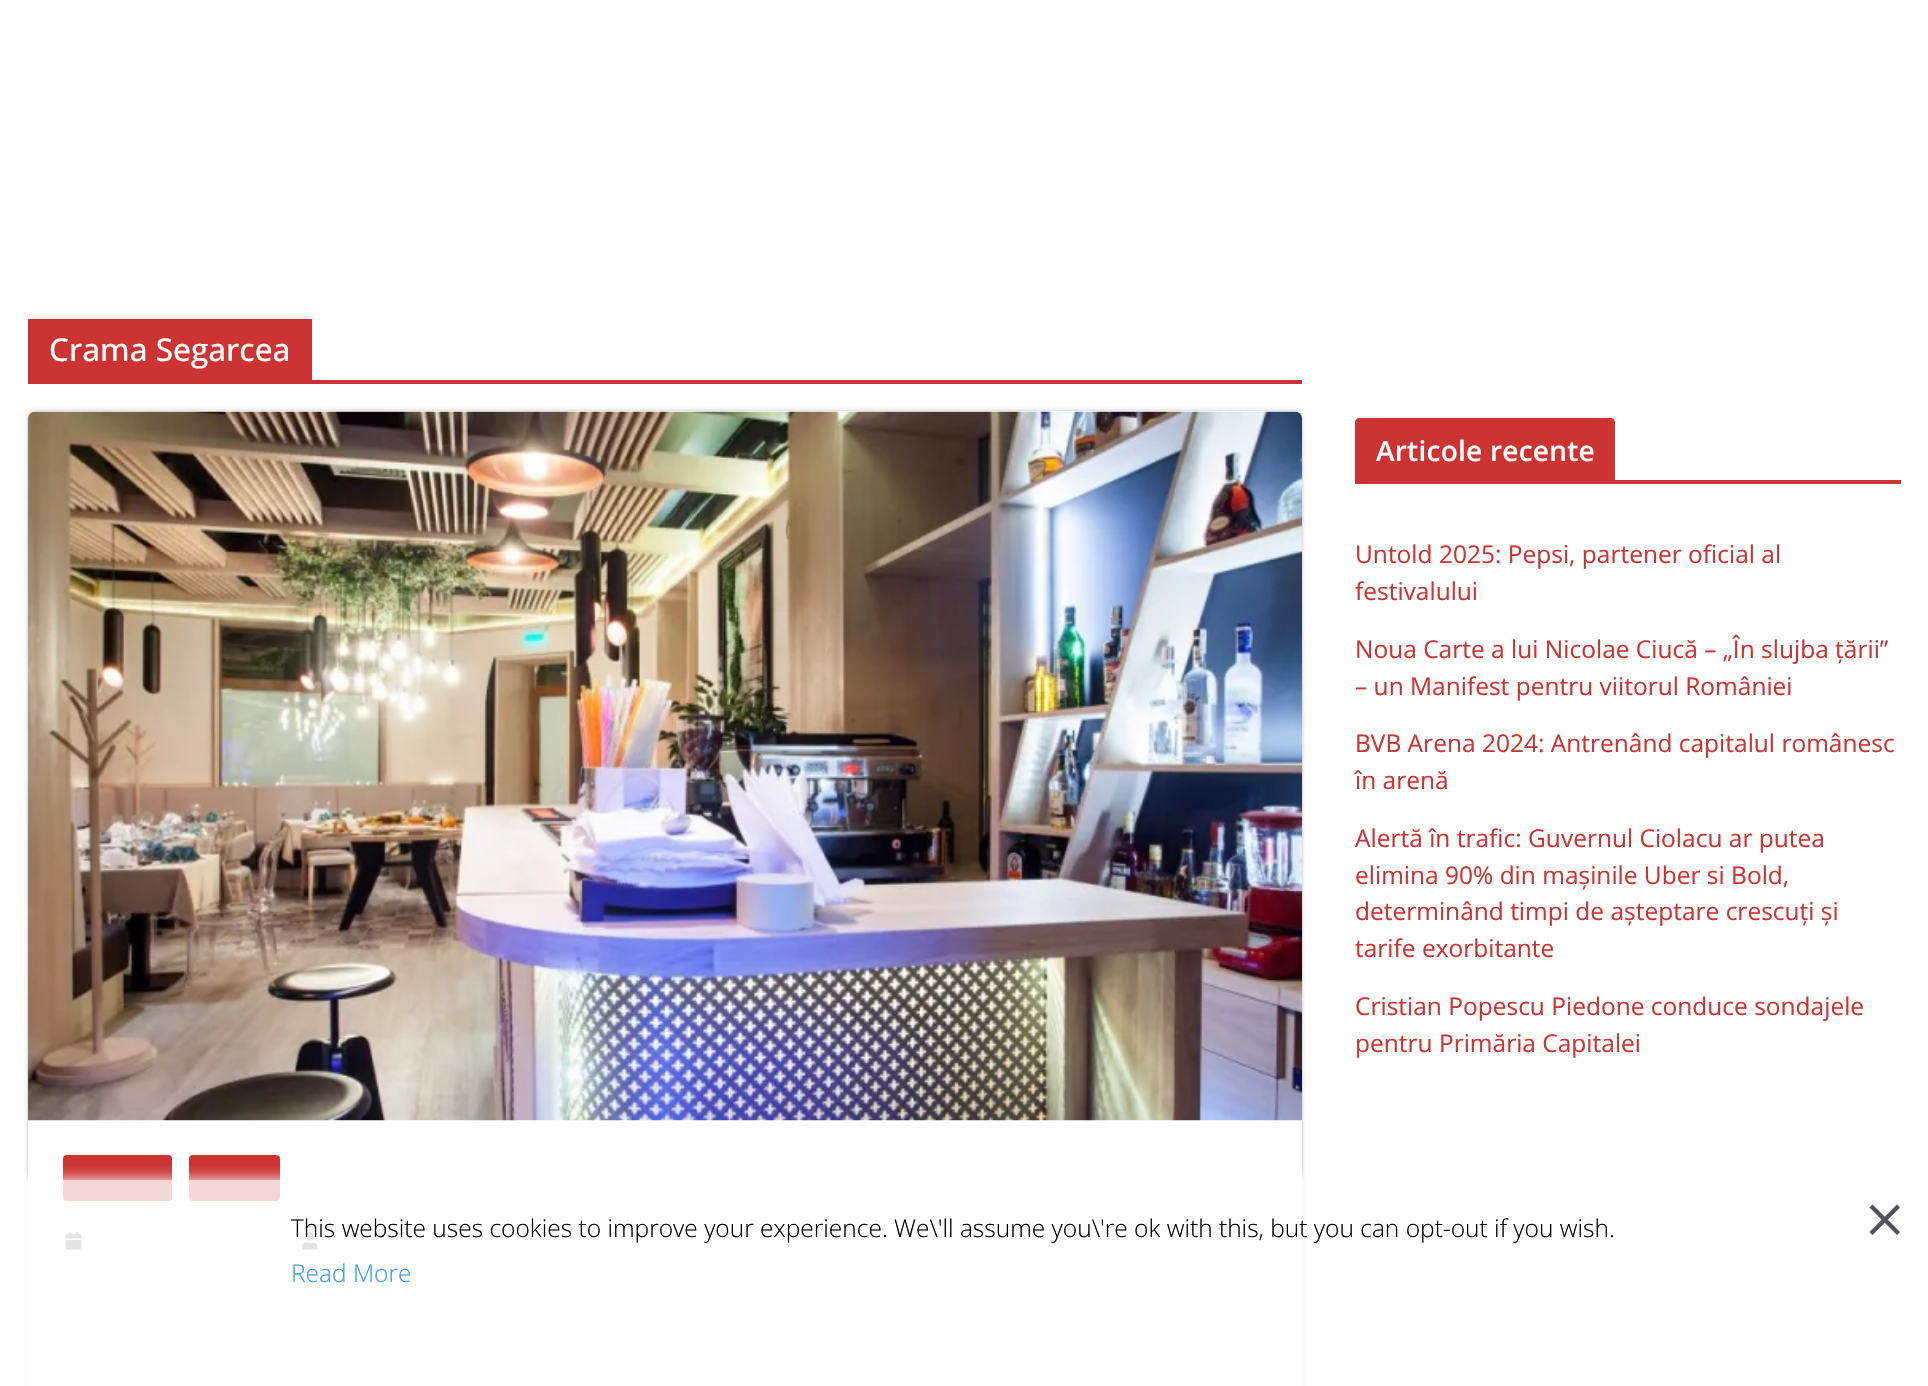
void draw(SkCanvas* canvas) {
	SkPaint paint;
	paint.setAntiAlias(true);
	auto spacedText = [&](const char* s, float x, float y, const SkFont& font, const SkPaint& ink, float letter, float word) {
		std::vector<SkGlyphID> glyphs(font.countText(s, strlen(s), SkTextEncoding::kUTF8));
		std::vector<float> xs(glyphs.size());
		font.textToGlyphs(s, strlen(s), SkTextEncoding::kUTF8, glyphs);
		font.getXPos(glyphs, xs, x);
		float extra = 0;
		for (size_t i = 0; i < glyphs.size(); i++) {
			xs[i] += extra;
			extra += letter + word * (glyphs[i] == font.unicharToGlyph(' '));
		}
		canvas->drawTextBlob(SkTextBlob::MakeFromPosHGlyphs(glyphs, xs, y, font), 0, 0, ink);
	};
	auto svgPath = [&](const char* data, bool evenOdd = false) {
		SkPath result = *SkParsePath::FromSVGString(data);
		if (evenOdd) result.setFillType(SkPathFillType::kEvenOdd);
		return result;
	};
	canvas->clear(0xffffffff);
	paint.setColor(0xffcc3333);
	canvas->drawRect(SkRect::MakeXYWH(28, 380, 1274, 4), paint);
	canvas->drawRect(SkRect::MakeXYWH(28, 319, 284, 61), paint);
	SkFont f1(fontMgr->matchFamilyStyle("Open Sans", SkFontStyle(500, SkFontStyle::kNormal_Width, SkFontStyle::kUpright_Slant)), 31.5);
	f1.setSubpixel(true);
	paint.setColor(0xffffffff);
	canvas->drawString("Crama Segarcea", 49, 361, f1, paint);
	canvas->save();
	canvas->clipPath(svgPath("M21 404H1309V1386H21ZM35 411H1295C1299 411 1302 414 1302 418V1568C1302 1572 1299 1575 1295 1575H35C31 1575 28 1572 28 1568V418C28 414 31 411 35 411Z", true), true);
	paint.setColor(0x3d000000);
	paint.setMaskFilter(SkMaskFilter::MakeBlur(kNormal_SkBlurStyle, 2));
	canvas->drawRoundRect(SkRect::MakeXYWH(28, 411, 1274, 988), 7, 7, paint);
	paint.setMaskFilter(nullptr);
	canvas->restore();
	canvas->drawImageRect(SkImages::DeferredFromEncodedData(SkData::MakeFromFileName("img1.png")), SkRect::MakeXYWH(28, 411, 1274, 710), SkSamplingOptions());
	paint.setColor(0xffcc3333);
	canvas->drawRoundRect(SkRect::MakeXYWH(63, 1155, 109, 46), 4, 4, paint);
	canvas->drawRoundRect(SkRect::MakeXYWH(189, 1155, 91, 46), 4, 4, paint);
	canvas->drawImageRect(SkImages::DeferredFromEncodedData(SkData::MakeFromFileName("img2.png")), SkRect::MakeXYWH(65, 1232, 17, 18), SkSamplingOptions());
	canvas->drawImageRect(SkImages::DeferredFromEncodedData(SkData::MakeFromFileName("img3.png")), SkRect::MakeXYWH(301, 1232, 17, 18), SkSamplingOptions());
	canvas->drawRect(SkRect::MakeXYWH(1355, 480, 546, 4), paint);
	canvas->drawPath(svgPath("M1359 418H1611C1613 418 1615 420 1615 422V480H1355V422C1355 420 1357 418 1359 418Z"), paint);
	SkFont f2(fontMgr->matchFamilyStyle("Open Sans", SkFontStyle(600, SkFontStyle::kNormal_Width, SkFontStyle::kUpright_Slant)), 28);
	f2.setSubpixel(true);
	paint.setColor(0xffffffff);
	spacedText("Articole recente", 1376, 461, f2, paint, 0.25, 0);
	SkFont f3(fontMgr->matchFamilyStyle("Open Sans", SkFontStyle::Normal()), 24.5);
	f3.setSubpixel(true);
	paint.setColor(0xffcc3333);
	canvas->drawString("Untold 2025: Pepsi, partener oficial al", 1355, 563, f3, paint);
	canvas->drawString("festivalului", 1355, 600, f3, paint);
	canvas->drawString("Noua Carte a lui Nicolae Ciucă – „În slujba țării”", 1355, 658, f3, paint);
	canvas->drawString("– un Manifest pentru viitorul României", 1355, 695, f3, paint);
	canvas->drawString("BVB Arena 2024: Antrenând capitalul românesc", 1355, 752, f3, paint);
	canvas->drawString("în arenă", 1355, 789, f3, paint);
	canvas->drawString("Alertă în trafic: Guvernul Ciolacu ar putea", 1355, 847, f3, paint);
	canvas->drawString("elimina 90% din mașinile Uber si Bold,", 1355, 884, f3, paint);
	canvas->drawString("determinând timpi de așteptare crescuți și", 1355, 920, f3, paint);
	canvas->drawString("tarife exorbitante", 1355, 957, f3, paint);
	canvas->drawString("Cristian Popescu Piedone conduce sondajele", 1355, 1015, f3, paint);
	canvas->drawString("pentru Primăria Capitalei", 1355, 1052, f3, paint);
	canvas->save();
	canvas->clipRect(SkRect::MakeXYWH(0, 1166, 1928, 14));
	paint.setColor(0xffffffff);
	paint.setMaskFilter(SkMaskFilter::MakeBlur(kNormal_SkBlurStyle, 7));
	canvas->drawRect(SkRect::MakeXYWH(0, 1180, 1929, 206), paint);
	paint.setMaskFilter(nullptr);
	canvas->restore();
	paint.setColor(0xccffffff);
	canvas->drawRect(SkRect::MakeXYWH(25, 1180, 1280, 206), paint);
	SkFont f4(fontMgr->matchFamilyStyle("Open Sans", SkFontStyle(300, SkFontStyle::kNormal_Width, SkFontStyle::kUpright_Slant)), 24.5);
	f4.setSubpixel(true);
	paint.setColor(0xff000000);
	canvas->drawString("This website uses cookies to improve your experience. We\\'ll assume you\\'re ok with this, but you can opt-out if you wish.", 291, 1237, f4, paint);
	paint.setColor(0xff359bf5);
	canvas->drawString("Read More", 291, 1282, f4, paint);
	canvas->drawImageRect(SkImages::DeferredFromEncodedData(SkData::MakeFromFileName("img4.png")), SkRect::MakeXYWH(1869, 1204, 31, 31), SkSamplingOptions());
}
